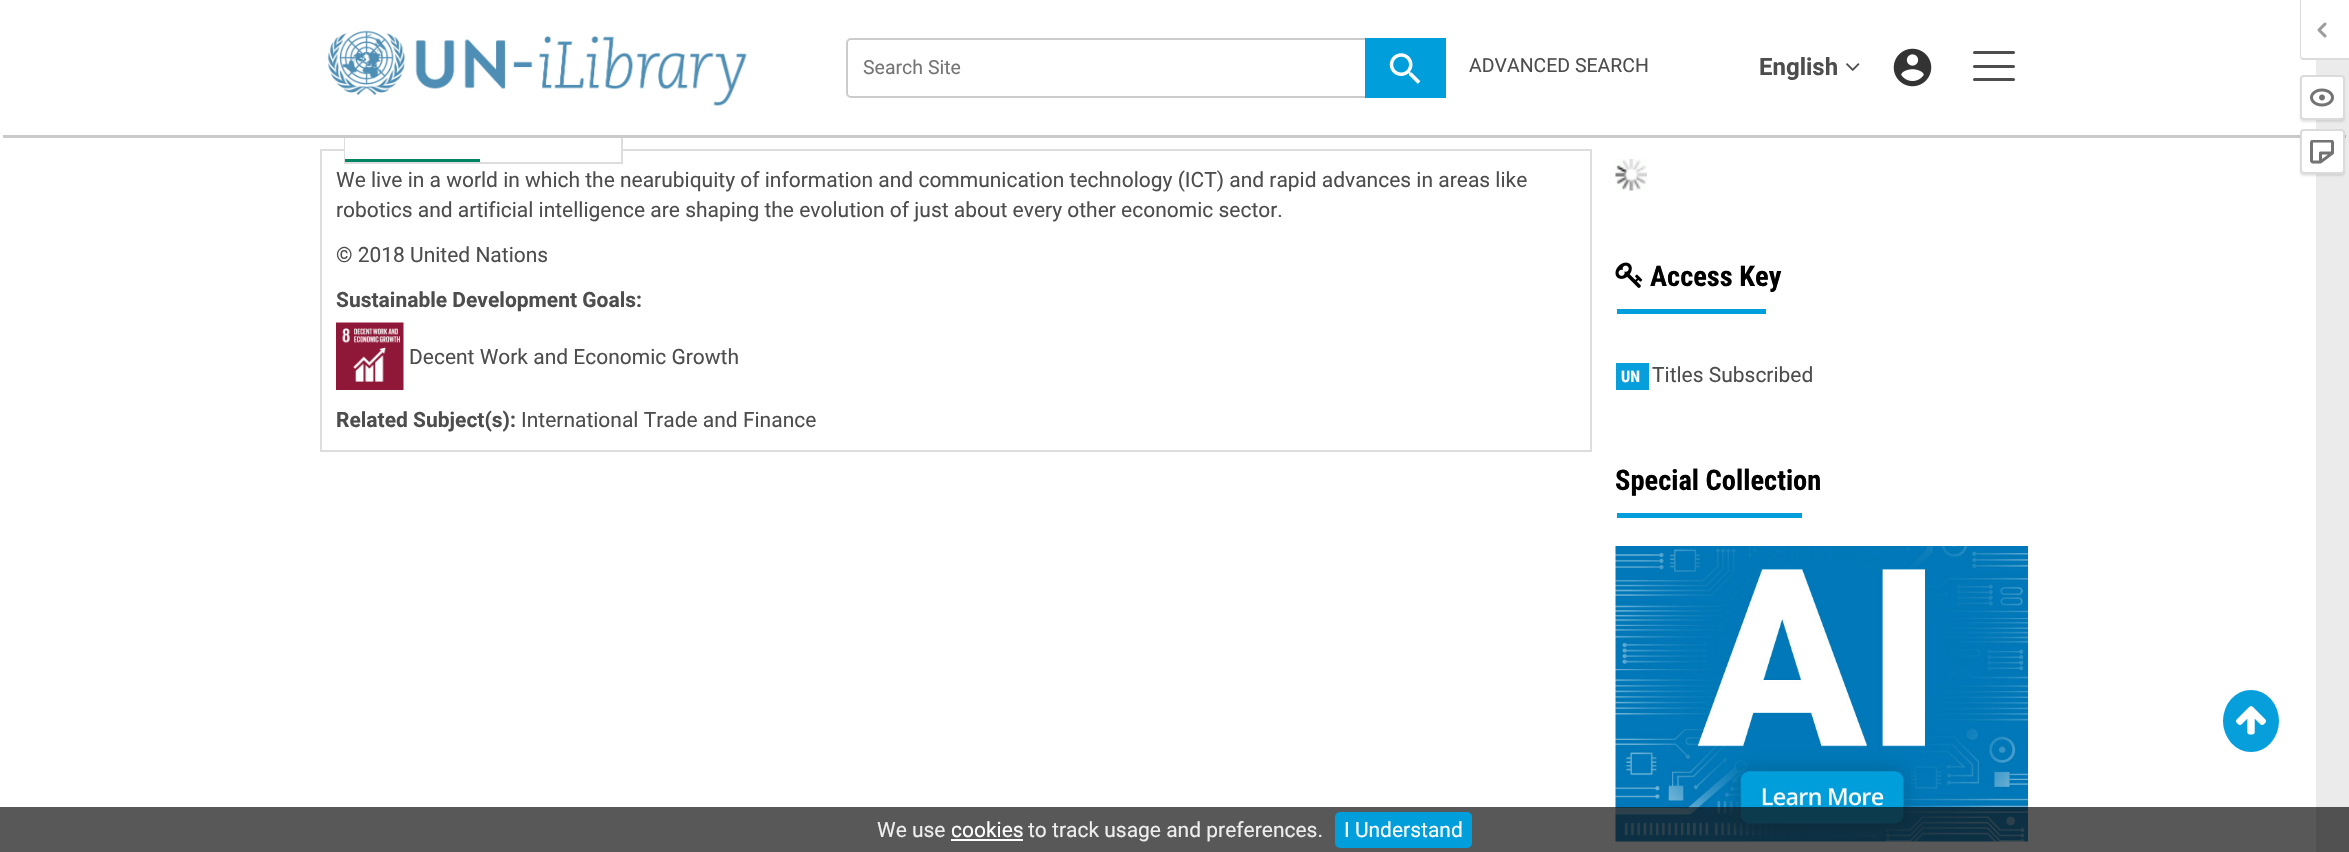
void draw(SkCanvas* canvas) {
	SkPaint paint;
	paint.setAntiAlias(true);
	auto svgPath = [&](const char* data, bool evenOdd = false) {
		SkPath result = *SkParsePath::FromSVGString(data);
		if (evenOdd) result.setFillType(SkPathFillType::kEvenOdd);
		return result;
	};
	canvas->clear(0xffffffff);
	paint.setStroke(true);
	paint.setStrokeWidth(2);
	paint.setColor(0xffdddddd);
	canvas->drawRect(SkRect::MakeXYWH(321, 150, 1270, 301), paint);
	paint.setStroke(false);
	paint.setColor(0xffffffff);
	canvas->drawRect(SkRect::MakeXYWH(480, 149, 141, 2), paint);
	paint.setStroke(true);
	paint.setColor(0xffdddddd);
	canvas->drawRect(SkRect::MakeXYWH(345, 52, 277, 111), paint);
	paint.setStroke(false);
	paint.setColor(0xffffffff);
	canvas->drawRoundRect(SkRect::MakeXYWH(0, 0, 2349, 138), 6, 6, paint);
	paint.setColor(0xffcacaca);
	canvas->drawRect(SkRect::MakeXYWH(3, 135, 2343, 3), paint);
	canvas->drawImageRect(SkImages::DeferredFromEncodedData(SkData::MakeFromFileName("img1.png")), SkRect::MakeXYWH(327, 30, 420, 76), SkSamplingOptions());
	paint.setStroke(true);
	paint.setColor(0xffcccccc);
	canvas->drawRoundRect(SkRect::MakeXYWH(847, 39, 598, 58), 4, 4, paint);
	SkFont f1(fontMgr->matchFamilyStyle("Roboto", SkFontStyle::Normal()), 19.5);
	f1.setSubpixel(true);
	paint.setStroke(false);
	paint.setColor(0xff757575);
	canvas->drawString("Search Site", 863, 74, f1, paint);
	paint.setColor(0xff009edb);
	canvas->drawRect(SkRect::MakeXYWH(1365, 38, 81, 60), paint);
	canvas->drawImageRect(SkImages::DeferredFromEncodedData(SkData::MakeFromFileName("img2.png")), SkRect::MakeXYWH(1389, 53, 32, 31), SkSamplingOptions());
	paint.setColor(0xff4d4d4d);
	canvas->drawString("ADVANCED SEARCH", 1469, 72, f1, paint);
	SkFont f2(fontMgr->matchFamilyStyle("Roboto", SkFontStyle::Bold()), 24);
	f2.setSubpixel(true);
	canvas->drawString("English", 1759, 75, f2, paint);
	canvas->drawImageRect(SkImages::DeferredFromEncodedData(SkData::MakeFromFileName("img3.png")), SkRect::MakeXYWH(1846, 63, 14, 8), SkSamplingOptions());
	canvas->drawImageRect(SkImages::DeferredFromEncodedData(SkData::MakeFromFileName("img4.png")), SkRect::MakeXYWH(1893, 48, 39, 39), SkSamplingOptions());
	canvas->drawRoundRect(SkRect::MakeXYWH(1973, 51, 42, 3), 1.5, 1.5, paint);
	canvas->drawRoundRect(SkRect::MakeXYWH(1973, 65, 42, 3), 1.5, 1.5, paint);
	canvas->drawRoundRect(SkRect::MakeXYWH(1973, 78, 42, 3), 1.5, 1.5, paint);
	paint.setColor(0xffffffff);
	canvas->drawRect(SkRect::MakeXYWH(345, 138, 135, 21), paint);
	paint.setColor(0xff008461);
	canvas->drawRect(SkRect::MakeXYWH(345, 159, 135, 3), paint);
	SkFont f3(fontMgr->matchFamilyStyle("Roboto", SkFontStyle::Normal()), 21);
	f3.setSubpixel(true);
	paint.setColor(0xff4d4d4d);
	canvas->drawString("We live in a world in which the nearubiquity of information and communication technology (ICT) and rapid advances in areas like", 336, 187, f3, paint);
	canvas->drawString("robotics and artificial intelligence are shaping the evolution of just about every other economic sector.", 336, 217, f3, paint);
	canvas->drawString("© 2018 United Nations", 336, 262, f3, paint);
	SkFont f4(fontMgr->matchFamilyStyle("Roboto", SkFontStyle::Bold()), 21);
	f4.setSubpixel(true);
	canvas->drawString("Sustainable Development Goals:", 336, 307, f4, paint);
	canvas->drawImageRect(SkImages::DeferredFromEncodedData(SkData::MakeFromFileName("img5.png")), SkRect::MakeXYWH(336, 322, 68, 68), SkSamplingOptions());
	canvas->drawString("Decent Work and Economic Growth", 409, 364, f3, paint);
	canvas->drawString("Related Subject(s):", 336, 427, f4, paint);
	canvas->drawString("International Trade and Finance", 521, 427, f3, paint);
	canvas->drawImageRect(SkImages::DeferredFromEncodedData(SkData::MakeFromFileName("img6.png")), SkRect::MakeXYWH(1615, 159, 32, 32), SkSamplingOptions());
	canvas->drawImageRect(SkImages::DeferredFromEncodedData(SkData::MakeFromFileName("img7.png")), SkRect::MakeXYWH(1615, 262, 28, 26), SkSamplingOptions());
	SkFont f5(fontMgr->matchFamilyStyle("Roboto Condensed", SkFontStyle::Bold()), 28.5);
	f5.setSubpixel(true);
	paint.setColor(0xff000000);
	canvas->drawString("Access Key", 1650, 286, f5, paint);
	paint.setColor(0xff009edb);
	canvas->drawRect(SkRect::MakeXYWH(1617, 309, 149, 5), paint);
	paint.setColor(0xff069edb);
	canvas->drawRect(SkRect::MakeXYWH(1616, 363, 33, 27), paint);
	SkFont f6(fontMgr->matchFamilyStyle("Roboto Condensed", SkFontStyle::Bold()), 16);
	f6.setSubpixel(true);
	paint.setColor(0xffffffff);
	canvas->drawString("UN", 1621, 382, f6, paint);
	paint.setColor(0xff4d4d4d);
	canvas->drawString("Titles Subscribed", 1652, 382, f3, paint);
	paint.setColor(0xff000000);
	canvas->drawString("Special Collection", 1615, 490, f5, paint);
	paint.setColor(0xff009edb);
	canvas->drawRect(SkRect::MakeXYWH(1617, 513, 185, 5), paint);
	canvas->drawImageRect(SkImages::DeferredFromEncodedData(SkData::MakeFromFileName("img8.png")), SkRect::MakeXYWH(1615, 546, 413, 296), SkSamplingOptions());
	paint.setColor(0xff069edb);
	canvas->drawOval(SkRect::MakeXYWH(2223, 690, 56, 62), paint);
	canvas->drawImageRect(SkImages::DeferredFromEncodedData(SkData::MakeFromFileName("img9.png")), SkRect::MakeXYWH(2236, 706, 30, 29), SkSamplingOptions());
	paint.setColor(0xb3111111);
	canvas->drawRect(SkRect::MakeXYWH(0, 807, 2349, 45), paint);
	paint.setColor(0x14000000);
	canvas->drawRect(SkRect::MakeXYWH(2316, 60, 33, 792), paint);
	paint.setColor(0xffdbdbdb);
	canvas->drawPath(svgPath("M2300 0H2349V60H2303C2301 60 2300 58 2300 56ZM2301 0H2349V58H2303C2302 58 2301 57 2301 56Z", true), paint);
	canvas->drawImageRect(SkImages::DeferredFromEncodedData(SkData::MakeFromFileName("img10.png")), SkRect::MakeXYWH(2317, 22, 10, 16), SkSamplingOptions());
	paint.setColor(0x1a000000);
	paint.setMaskFilter(SkMaskFilter::MakeBlur(kNormal_SkBlurStyle, 1));
	canvas->drawRoundRect(SkRect::MakeXYWH(2300, 77, 45, 45), 4, 4, paint);
	paint.setMaskFilter(nullptr);
	paint.setColor(0xffffffff);
	canvas->drawRoundRect(SkRect::MakeXYWH(2301, 76, 43, 43), 3, 3, paint);
	paint.setStroke(true);
	paint.setColor(0xffdbdbdb);
	canvas->drawRoundRect(SkRect::MakeXYWH(2301, 76, 43, 43), 3, 3, paint);
	canvas->drawImageRect(SkImages::DeferredFromEncodedData(SkData::MakeFromFileName("img11.png")), SkRect::MakeXYWH(2310, 88, 24, 19), SkSamplingOptions());
	paint.setStroke(false);
	paint.setColor(0x1a000000);
	paint.setMaskFilter(SkMaskFilter::MakeBlur(kNormal_SkBlurStyle, 1));
	canvas->drawRoundRect(SkRect::MakeXYWH(2300, 131, 45, 45), 4, 4, paint);
	paint.setMaskFilter(nullptr);
	paint.setColor(0xffffffff);
	canvas->drawRoundRect(SkRect::MakeXYWH(2301, 130, 43, 43), 3, 3, paint);
	paint.setStroke(true);
	paint.setColor(0xffdbdbdb);
	canvas->drawRoundRect(SkRect::MakeXYWH(2301, 130, 43, 43), 3, 3, paint);
	canvas->drawImageRect(SkImages::DeferredFromEncodedData(SkData::MakeFromFileName("img12.png")), SkRect::MakeXYWH(2310, 140, 24, 24), SkSamplingOptions());
	paint.setStroke(false);
	paint.setColor(0xffeeeeee);
	canvas->drawString("We use", 877, 837, f3, paint);
	paint.setColor(0xffffffff);
	canvas->drawString("cookies", 951, 837, f3, paint);
	canvas->drawRect(SkRect::MakeXYWH(951, 839, 72, 2), paint);
	paint.setColor(0xffeeeeee);
	canvas->drawString("to track usage and preferences.", 1028, 837, f3, paint);
	paint.setColor(0xff009edb);
	canvas->drawRoundRect(SkRect::MakeXYWH(1335, 812, 137, 36), 5, 5, paint);
	paint.setColor(0xffffffff);
	canvas->drawString("I Understand", 1344, 837, f3, paint);
}
